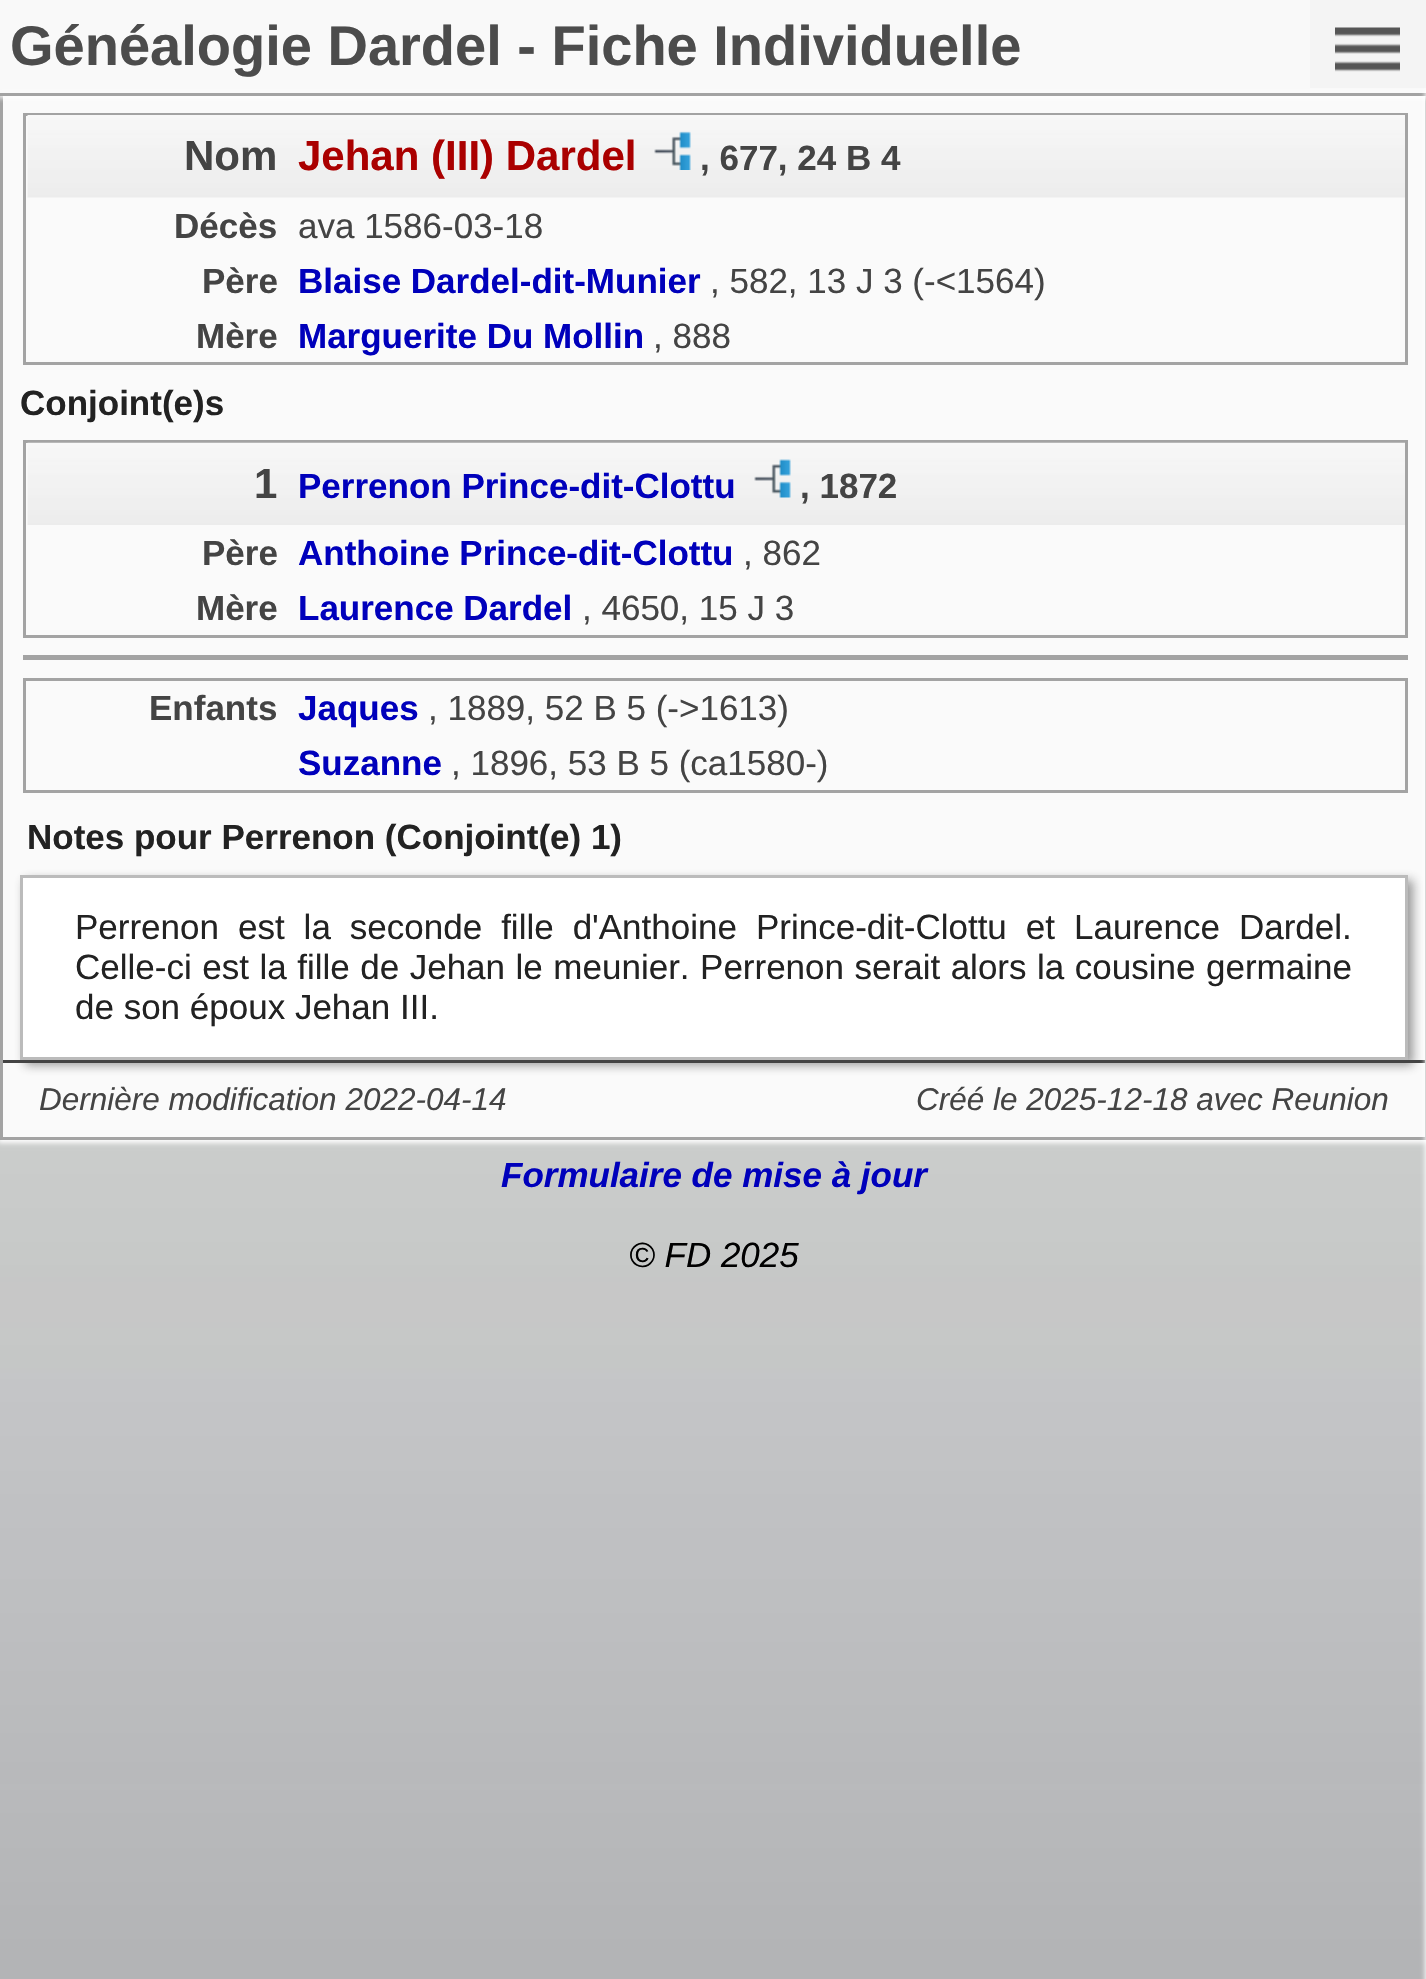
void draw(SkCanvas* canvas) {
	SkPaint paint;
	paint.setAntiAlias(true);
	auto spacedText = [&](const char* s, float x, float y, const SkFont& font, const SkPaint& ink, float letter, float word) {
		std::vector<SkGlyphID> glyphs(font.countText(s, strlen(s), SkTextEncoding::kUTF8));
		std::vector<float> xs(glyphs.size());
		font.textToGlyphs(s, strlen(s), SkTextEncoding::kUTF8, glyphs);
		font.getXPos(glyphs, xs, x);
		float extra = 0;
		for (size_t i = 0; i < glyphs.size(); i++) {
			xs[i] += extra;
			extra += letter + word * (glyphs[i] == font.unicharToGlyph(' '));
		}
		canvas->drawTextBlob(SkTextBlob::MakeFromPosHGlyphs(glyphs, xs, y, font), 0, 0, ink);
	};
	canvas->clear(0xffffffff);
	canvas->drawImageRect(SkImages::DeferredFromEncodedData(SkData::MakeFromFileName("img1.png")), SkRect::MakeXYWH(0, 0, 1426, 1979), SkSamplingOptions());
	paint.setColor(0xffffffff);
	paint.setMaskFilter(SkMaskFilter::MakeBlur(kNormal_SkBlurStyle, 2.5));
	canvas->drawRect(SkRect::MakeXYWH(-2, 90, 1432, 1053), paint);
	paint.setMaskFilter(nullptr);
	paint.setColor(0xfffafafa);
	canvas->drawRect(SkRect::MakeXYWH(1.5, 94.5, 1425, 1044), paint);
	paint.setStroke(true);
	paint.setStrokeWidth(3);
	paint.setColor(0xffa3a3a3);
	canvas->drawRect(SkRect::MakeXYWH(1.5, 94.5, 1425, 1044), paint);
	canvas->save();
	canvas->clipRect(SkRect::MakeXYWH(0, 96, 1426, 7));
	paint.setStroke(false);
	paint.setColor(0xf2ffffff);
	paint.setMaskFilter(SkMaskFilter::MakeBlur(kNormal_SkBlurStyle, 2.5));
	canvas->drawRect(SkRect::MakeXYWH(-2, -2, 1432, 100), paint);
	paint.setMaskFilter(nullptr);
	canvas->restore();
	paint.setColor(0xf2fafafa);
	canvas->drawRect(SkRect::MakeXYWH(0, 0, 1426, 93), paint);
	paint.setColor(0xffa3a3a3);
	canvas->drawRect(SkRect::MakeXYWH(0, 95, 1426, 1), paint);
	SkFont f1(fontMgr->matchFamilyStyle("Liberation Sans", SkFontStyle::Bold()), 56);
	f1.setSubpixel(true);
	paint.setColor(0xff4c4c4c);
	canvas->drawString("Généalogie Dardel - Fiche Individuelle", 10, 65, f1, paint);
	paint.setColor(0xfff4f4f4);
	canvas->drawRect(SkRect::MakeXYWH(1310, 0, 116, 88), paint);
	canvas->drawImageRect(SkImages::DeferredFromEncodedData(SkData::MakeFromFileName("img2.png")), SkRect::MakeXYWH(1335, 27, 65, 45), SkSamplingOptions());
	paint.setColor(0x80323232);
	paint.setMaskFilter(SkMaskFilter::MakeBlur(kNormal_SkBlurStyle, 5));
	canvas->drawRect(SkRect::MakeXYWH(25, 880, 1388, 185), paint);
	paint.setMaskFilter(nullptr);
	paint.setColor(0xff444444);
	canvas->drawRect(SkRect::MakeXYWH(3, 1060, 1422, 3), paint);
	paint.setColor(0xf2ffffff);
	paint.setMaskFilter(SkMaskFilter::MakeBlur(kNormal_SkBlurStyle, 2.5));
	canvas->drawRect(SkRect::MakeXYWH(1425, 90, 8, 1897), paint);
	paint.setMaskFilter(nullptr);
	paint.setStroke(true);
	paint.setColor(0xffa3a3a3);
	canvas->drawRect(SkRect::MakeXYWH(24.5, 114.5, 1382, 249), paint);
	canvas->drawImageRect(SkImages::DeferredFromEncodedData(SkData::MakeFromFileName("img3.png")), SkRect::MakeXYWH(27, 115, 1378, 83), SkSamplingOptions());
	SkFont f2(fontMgr->matchFamilyStyle("Liberation Sans", SkFontStyle::Bold()), 42);
	f2.setSubpixel(true);
	paint.setStroke(false);
	paint.setColor(0xff444444);
	canvas->drawString("Nom", 184, 170, f2, paint);
	paint.setColor(0xffaa0000);
	canvas->drawString("Jehan (III) Dardel", 298, 170, f2, paint);
	canvas->drawImageRect(SkImages::DeferredFromEncodedData(SkData::MakeFromFileName("img4.png")), SkRect::MakeXYWH(654, 131, 37, 39), SkSamplingOptions());
	SkFont f3(fontMgr->matchFamilyStyle("Liberation Sans", SkFontStyle::Bold()), 35);
	f3.setSubpixel(true);
	paint.setColor(0xff444444);
	canvas->drawString(", 677, 24 B 4", 700, 170, f3, paint);
	canvas->drawString("Décès", 174, 238, f3, paint);
	SkFont f4(fontMgr->matchFamilyStyle("Liberation Sans", SkFontStyle::Normal()), 35);
	f4.setSubpixel(true);
	canvas->drawString("ava 1586-03-18", 298, 238, f4, paint);
	canvas->drawString("Père", 202, 293, f3, paint);
	paint.setColor(0xff0000bb);
	canvas->drawString("Blaise Dardel-dit-Munier", 298, 293, f3, paint);
	paint.setColor(0xff444444);
	canvas->drawString(", 582, 13 J 3 (-<1564)", 710, 293, f4, paint);
	canvas->drawString("Mère", 196, 348, f3, paint);
	paint.setColor(0xff0000bb);
	canvas->drawString("Marguerite Du Mollin", 298, 348, f3, paint);
	paint.setColor(0xff444444);
	canvas->drawString(", 888", 653, 348, f4, paint);
	paint.setColor(0xff222222);
	canvas->drawString("Conjoint(e)s", 20, 415, f3, paint);
	paint.setStroke(true);
	paint.setColor(0xffa3a3a3);
	canvas->drawRect(SkRect::MakeXYWH(24.5, 441.5, 1382, 195), paint);
	canvas->drawImageRect(SkImages::DeferredFromEncodedData(SkData::MakeFromFileName("img5.png")), SkRect::MakeXYWH(27, 442, 1378, 83), SkSamplingOptions());
	paint.setStroke(false);
	paint.setColor(0xff444444);
	canvas->drawString("1", 254, 498, f2, paint);
	paint.setColor(0xff0000bb);
	canvas->drawString("Perrenon Prince-dit-Clottu", 298, 498, f3, paint);
	canvas->drawImageRect(SkImages::DeferredFromEncodedData(SkData::MakeFromFileName("img6.png")), SkRect::MakeXYWH(754, 459, 37, 39), SkSamplingOptions());
	paint.setColor(0xff444444);
	canvas->drawString(", 1872", 800, 498, f3, paint);
	canvas->drawString("Père", 202, 565, f3, paint);
	paint.setColor(0xff0000bb);
	canvas->drawString("Anthoine Prince-dit-Clottu", 298, 565, f3, paint);
	paint.setColor(0xff444444);
	canvas->drawString(", 862", 743, 565, f4, paint);
	canvas->drawString("Mère", 196, 620, f3, paint);
	paint.setColor(0xff0000bb);
	canvas->drawString("Laurence Dardel", 298, 620, f3, paint);
	paint.setColor(0xff444444);
	canvas->drawString(", 4650, 15 J 3", 582, 620, f4, paint);
	paint.setColor(0xffa3a3a3);
	canvas->drawRect(SkRect::MakeXYWH(23, 655, 1385, 5), paint);
	paint.setStroke(true);
	canvas->drawRect(SkRect::MakeXYWH(24.5, 679.5, 1382, 112), paint);
	paint.setStroke(false);
	paint.setColor(0xff444444);
	canvas->drawString("Enfants", 149, 720, f3, paint);
	paint.setColor(0xff0000bb);
	canvas->drawString("Jaques", 298, 720, f3, paint);
	paint.setColor(0xff444444);
	canvas->drawString(", 1889, 52 B 5 (->1613)", 428, 720, f4, paint);
	paint.setColor(0xff0000bb);
	canvas->drawString("Suzanne", 298, 775, f3, paint);
	paint.setColor(0xff444444);
	canvas->drawString(", 1896, 53 B 5 (ca1580-)", 451, 775, f4, paint);
	paint.setColor(0xff222222);
	canvas->drawString("Notes pour Perrenon (Conjoint(e) 1)", 27, 849, f3, paint);
	paint.setColor(0xffffffff);
	canvas->drawRect(SkRect::MakeXYWH(21.5, 876.5, 1385, 182), paint);
	paint.setStroke(true);
	paint.setColor(0xffbbbbbb);
	canvas->drawRect(SkRect::MakeXYWH(21.5, 876.5, 1385, 182), paint);
	paint.setStroke(false);
	paint.setColor(0xff222222);
	spacedText("Perrenon est la seconde fille d'Anthoine Prince-dit-Clottu et Laurence Dardel.", 75, 939, f4, paint, 0, 9.25);
	spacedText("Celle-ci est la fille de Jehan le meunier. Perrenon serait alors la cousine germaine", 75, 979, f4, paint, 0, 0.8);
	canvas->drawString("de son époux Jehan III.", 75, 1019, f4, paint);
	SkFont f5(fontMgr->matchFamilyStyle("Liberation Sans", SkFontStyle::Italic()), 31.5);
	f5.setSubpixel(true);
	paint.setColor(0xff444444);
	canvas->drawString("Dernière modification 2022-04-14", 39, 1110, f5, paint);
	canvas->drawString("Créé le 2025-12-18 avec Reunion", 916, 1110, f5, paint);
	SkFont f6(fontMgr->matchFamilyStyle("Liberation Sans", SkFontStyle::BoldItalic()), 35);
	f6.setSubpixel(true);
	paint.setColor(0xff0000bb);
	canvas->drawString("Formulaire de mise à jour", 501, 1187, f6, paint);
	SkFont f7(fontMgr->matchFamilyStyle("Liberation Sans", SkFontStyle::Italic()), 35);
	f7.setSubpixel(true);
	paint.setColor(0xff000000);
	canvas->drawString("© FD 2025", 629, 1267, f7, paint);
}
